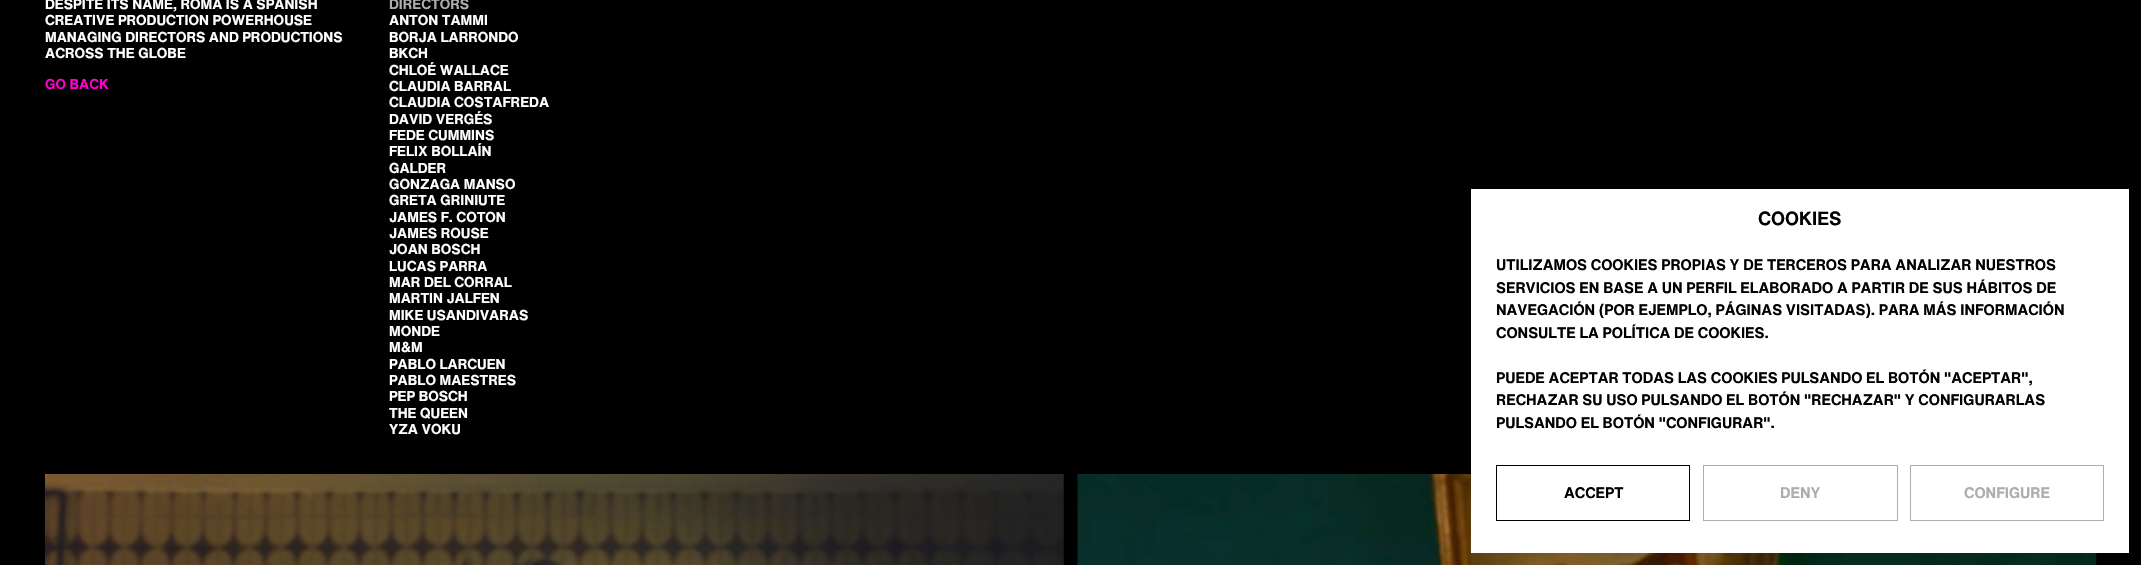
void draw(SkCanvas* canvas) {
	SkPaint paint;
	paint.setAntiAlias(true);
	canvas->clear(0xff000000);
	SkFont f1(fontMgr->matchFamilyStyle("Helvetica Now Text", SkFontStyle::Bold()), 14.1);
	f1.setSubpixel(true);
	paint.setColor(0xffffffff);
	canvas->drawString("DESPITE ITS NAME, ROMA IS A SPANISH", 45, 9, f1, paint);
	canvas->drawString("CREATIVE PRODUCTION POWERHOUSE", 45, 25, f1, paint);
	canvas->drawString("MANAGING DIRECTORS AND PRODUCTIONS", 45, 42, f1, paint);
	canvas->drawString("ACROSS THE GLOBE", 45, 58, f1, paint);
	paint.setColor(0xffff00cc);
	canvas->drawString("GO BACK", 45, 89, f1, paint);
	paint.setColor(0xffadadad);
	canvas->drawString("DIRECTORS", 389, 9, f1, paint);
	paint.setColor(0xffffffff);
	canvas->drawString("ANTON TAMMI", 389, 25, f1, paint);
	canvas->drawString("BORJA LARRONDO", 389, 42, f1, paint);
	canvas->drawString("BKCH", 389, 58, f1, paint);
	canvas->drawString("CHLOÉ WALLACE", 389, 75, f1, paint);
	canvas->drawString("CLAUDIA BARRAL", 389, 91, f1, paint);
	canvas->drawString("CLAUDIA COSTAFREDA", 389, 107, f1, paint);
	canvas->drawString("DAVID VERGÉS", 389, 124, f1, paint);
	canvas->drawString("FEDE CUMMINS", 389, 140, f1, paint);
	canvas->drawString("FELIX BOLLAÍN", 389, 156, f1, paint);
	canvas->drawString("GALDER", 389, 173, f1, paint);
	canvas->drawString("GONZAGA MANSO", 389, 189, f1, paint);
	canvas->drawString("GRETA GRINIUTE", 389, 205, f1, paint);
	canvas->drawString("JAMES F. COTON", 389, 222, f1, paint);
	canvas->drawString("JAMES ROUSE", 389, 238, f1, paint);
	canvas->drawString("JOAN BOSCH", 389, 254, f1, paint);
	canvas->drawString("LUCAS PARRA", 389, 271, f1, paint);
	canvas->drawString("MAR DEL CORRAL", 389, 287, f1, paint);
	canvas->drawString("MARTIN JALFEN", 389, 303, f1, paint);
	canvas->drawString("MIKE USANDIVARAS", 389, 320, f1, paint);
	canvas->drawString("MONDE", 389, 336, f1, paint);
	canvas->drawString("M&M", 389, 352, f1, paint);
	canvas->drawString("PABLO LARCUEN", 389, 369, f1, paint);
	canvas->drawString("PABLO MAESTRES", 389, 385, f1, paint);
	canvas->drawString("PEP BOSCH", 389, 401, f1, paint);
	canvas->drawString("THE QUEEN", 389, 418, f1, paint);
	canvas->drawString("YZA VOKU", 389, 434, f1, paint);
	canvas->drawImageRect(SkImages::DeferredFromEncodedData(SkData::MakeFromFileName("img2.png")), SkRect::MakeXYWH(1077, 474, 1020, 91), SkSamplingOptions());
	canvas->drawRect(SkRect::MakeXYWH(1471, 189, 658, 364), paint);
	SkFont f2(fontMgr->matchFamilyStyle("Helvetica Now Text", SkFontStyle::Bold()), 18.75);
	f2.setSubpixel(true);
	paint.setColor(0xff000000);
	canvas->drawString("COOKIES", 1758, 225, f2, paint);
	SkFont f3(fontMgr->matchFamilyStyle("Helvetica Now Text", SkFontStyle::Bold()), 15);
	f3.setSubpixel(true);
	canvas->drawString("UTILIZAMOS COOKIES PROPIAS Y DE TERCEROS PARA ANALIZAR NUESTROS", 1496, 270, f3, paint);
	canvas->drawString("SERVICIOS EN BASE A UN PERFIL ELABORADO A PARTIR DE SUS HÁBITOS DE", 1496, 293, f3, paint);
	canvas->drawString("NAVEGACIÓN (POR EJEMPLO, PÁGINAS VISITADAS). PARA MÁS INFORMACIÓN", 1496, 315, f3, paint);
	canvas->drawString("CONSULTE LA POLÍTICA DE COOKIES.", 1496, 338, f3, paint);
	canvas->drawString("PUEDE ACEPTAR TODAS LAS COOKIES PULSANDO EL BOTÓN \"ACEPTAR\",", 1496, 383, f3, paint);
	canvas->drawString("RECHAZAR SU USO PULSANDO EL BOTÓN \"RECHAZAR\" Y CONFIGURARLAS", 1496, 405, f3, paint);
	canvas->drawString("PULSANDO EL BOTÓN \"CONFIGURAR\".", 1496, 428, f3, paint);
	paint.setStroke(true);
	paint.setStrokeWidth(1);
	canvas->drawRect(SkRect::MakeXYWH(1496.5, 465.5, 193, 55), paint);
	paint.setStroke(false);
	canvas->drawString("ACCEPT", 1564, 498, f3, paint);
	paint.setStroke(true);
	paint.setColor(0xffadadad);
	canvas->drawRect(SkRect::MakeXYWH(1703.5, 465.5, 194, 55), paint);
	paint.setStroke(false);
	canvas->drawString("DENY", 1780, 498, f3, paint);
	paint.setStroke(true);
	canvas->drawRect(SkRect::MakeXYWH(1910.5, 465.5, 193, 55), paint);
	paint.setStroke(false);
	canvas->drawString("CONFIGURE", 1964, 498, f3, paint);
	canvas->drawImageRect(SkImages::DeferredFromEncodedData(SkData::MakeFromFileName("img1.png")), SkRect::MakeXYWH(45, 474, 1019, 91), SkSamplingOptions());
}
